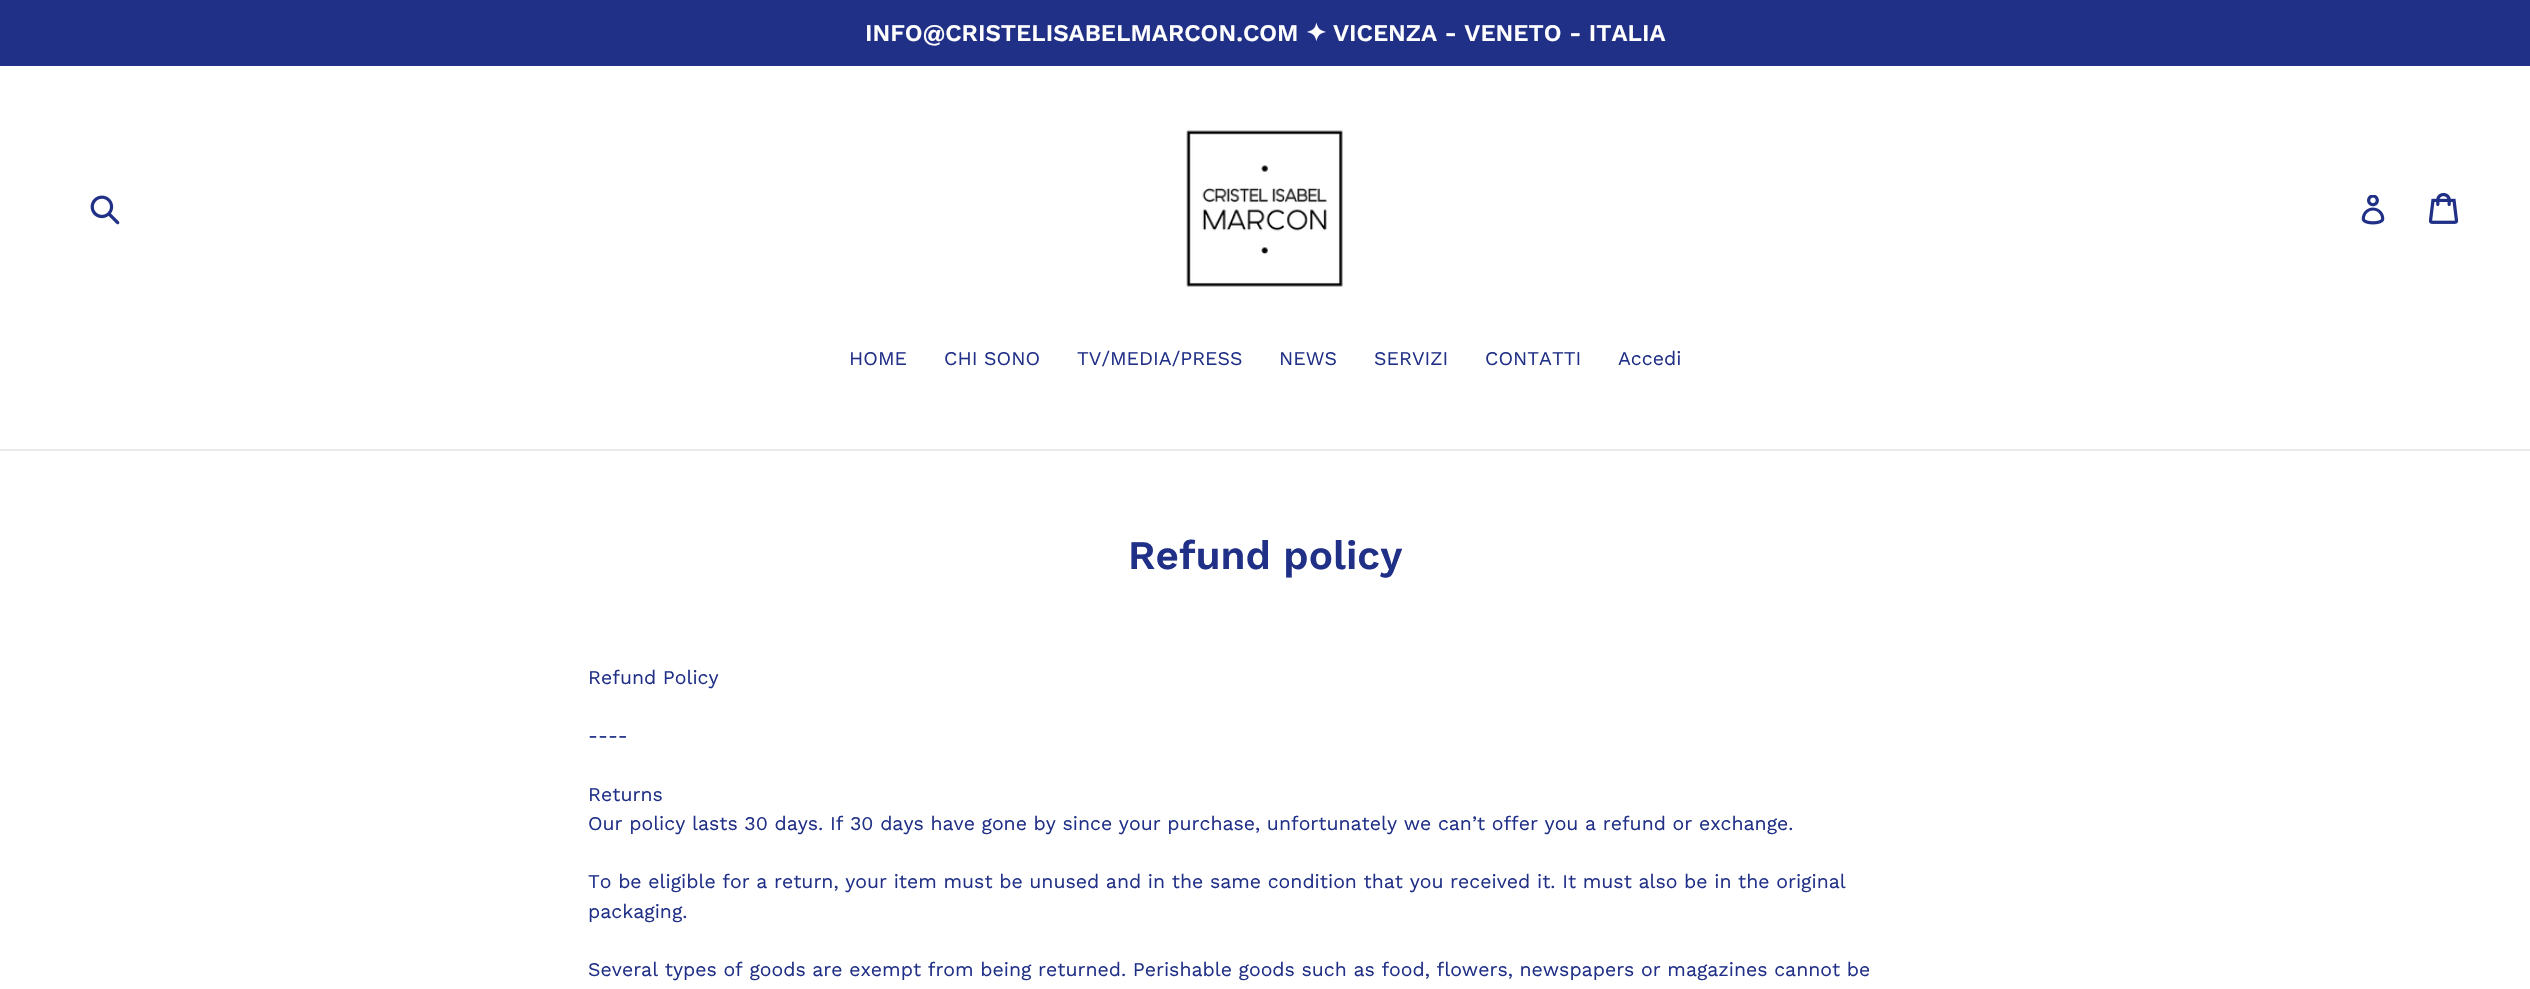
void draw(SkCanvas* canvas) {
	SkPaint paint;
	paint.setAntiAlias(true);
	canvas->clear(0xffffffff);
	paint.setColor(0xff213087);
	canvas->drawRect(SkRect::MakeXYWH(0, 0, 2530, 66), paint);
	SkFont f1(fontMgr->matchFamilyStyle("Work Sans", SkFontStyle(600, SkFontStyle::kNormal_Width, SkFontStyle::kUpright_Slant)), 24);
	f1.setSubpixel(true);
	paint.setColor(0xffffffff);
	canvas->drawString("INFO@CRISTELISABELMARCON.COM", 865, 41, f1, paint);
	SkFont f2(fontMgr->matchFamilyStyle("DejaVu Sans", SkFontStyle::Bold()), 24);
	f2.setSubpixel(true);
	canvas->drawString("✦", 1306, 41, f2, paint);
	canvas->drawString("VICENZA - VENETO - ITALIA", 1333, 41, f1, paint);
	canvas->drawImageRect(SkImages::DeferredFromEncodedData(SkData::MakeFromFileName("img1.png")), SkRect::MakeXYWH(90, 195, 30, 30), SkSamplingOptions());
	canvas->drawImageRect(SkImages::DeferredFromEncodedData(SkData::MakeFromFileName("img2.png")), SkRect::MakeXYWH(1186, 130, 157, 157), SkSamplingOptions());
	canvas->drawImageRect(SkImages::DeferredFromEncodedData(SkData::MakeFromFileName("img3.png")), SkRect::MakeXYWH(2361, 195, 24, 30), SkSamplingOptions());
	canvas->drawImageRect(SkImages::DeferredFromEncodedData(SkData::MakeFromFileName("img4.png")), SkRect::MakeXYWH(2429, 192, 30, 32), SkSamplingOptions());
	paint.setColor(0xffe8e9eb);
	canvas->drawRect(SkRect::MakeXYWH(0, 449, 2530, 2), paint);
	SkFont f3(fontMgr->matchFamilyStyle("Work Sans", SkFontStyle::Normal()), 19.5);
	f3.setSubpixel(true);
	paint.setColor(0xff213087);
	canvas->drawString("HOME", 849, 365, f3, paint);
	canvas->drawString("CHI SONO", 944, 365, f3, paint);
	canvas->drawString("TV/MEDIA/PRESS", 1077, 365, f3, paint);
	canvas->drawString("NEWS", 1279, 365, f3, paint);
	canvas->drawString("SERVIZI", 1374, 365, f3, paint);
	canvas->drawString("CONTATTI", 1485, 365, f3, paint);
	canvas->drawString("Accedi", 1618, 365, f3, paint);
	SkFont f4(fontMgr->matchFamilyStyle("Work Sans", SkFontStyle(600, SkFontStyle::kNormal_Width, SkFontStyle::kUpright_Slant)), 40.5);
	f4.setSubpixel(true);
	canvas->drawString("Refund policy", 1128, 569, f4, paint);
	canvas->drawString("Refund Policy", 588, 684, f3, paint);
	canvas->drawString("----", 588, 742, f3, paint);
	canvas->drawString("Returns", 588, 801, f3, paint);
	canvas->drawString("Our policy lasts 30 days. If 30 days have gone by since your purchase, unfortunately we can’t offer you a refund or exchange.", 588, 830, f3, paint);
	canvas->drawString("To be eligible for a return, your item must be unused and in the same condition that you received it. It must also be in the original", 588, 888, f3, paint);
	canvas->drawString("packaging.", 588, 918, f3, paint);
	canvas->drawString("Several types of goods are exempt from being returned. Perishable goods such as food, flowers, newspapers or magazines cannot be", 588, 976, f3, paint);
}
